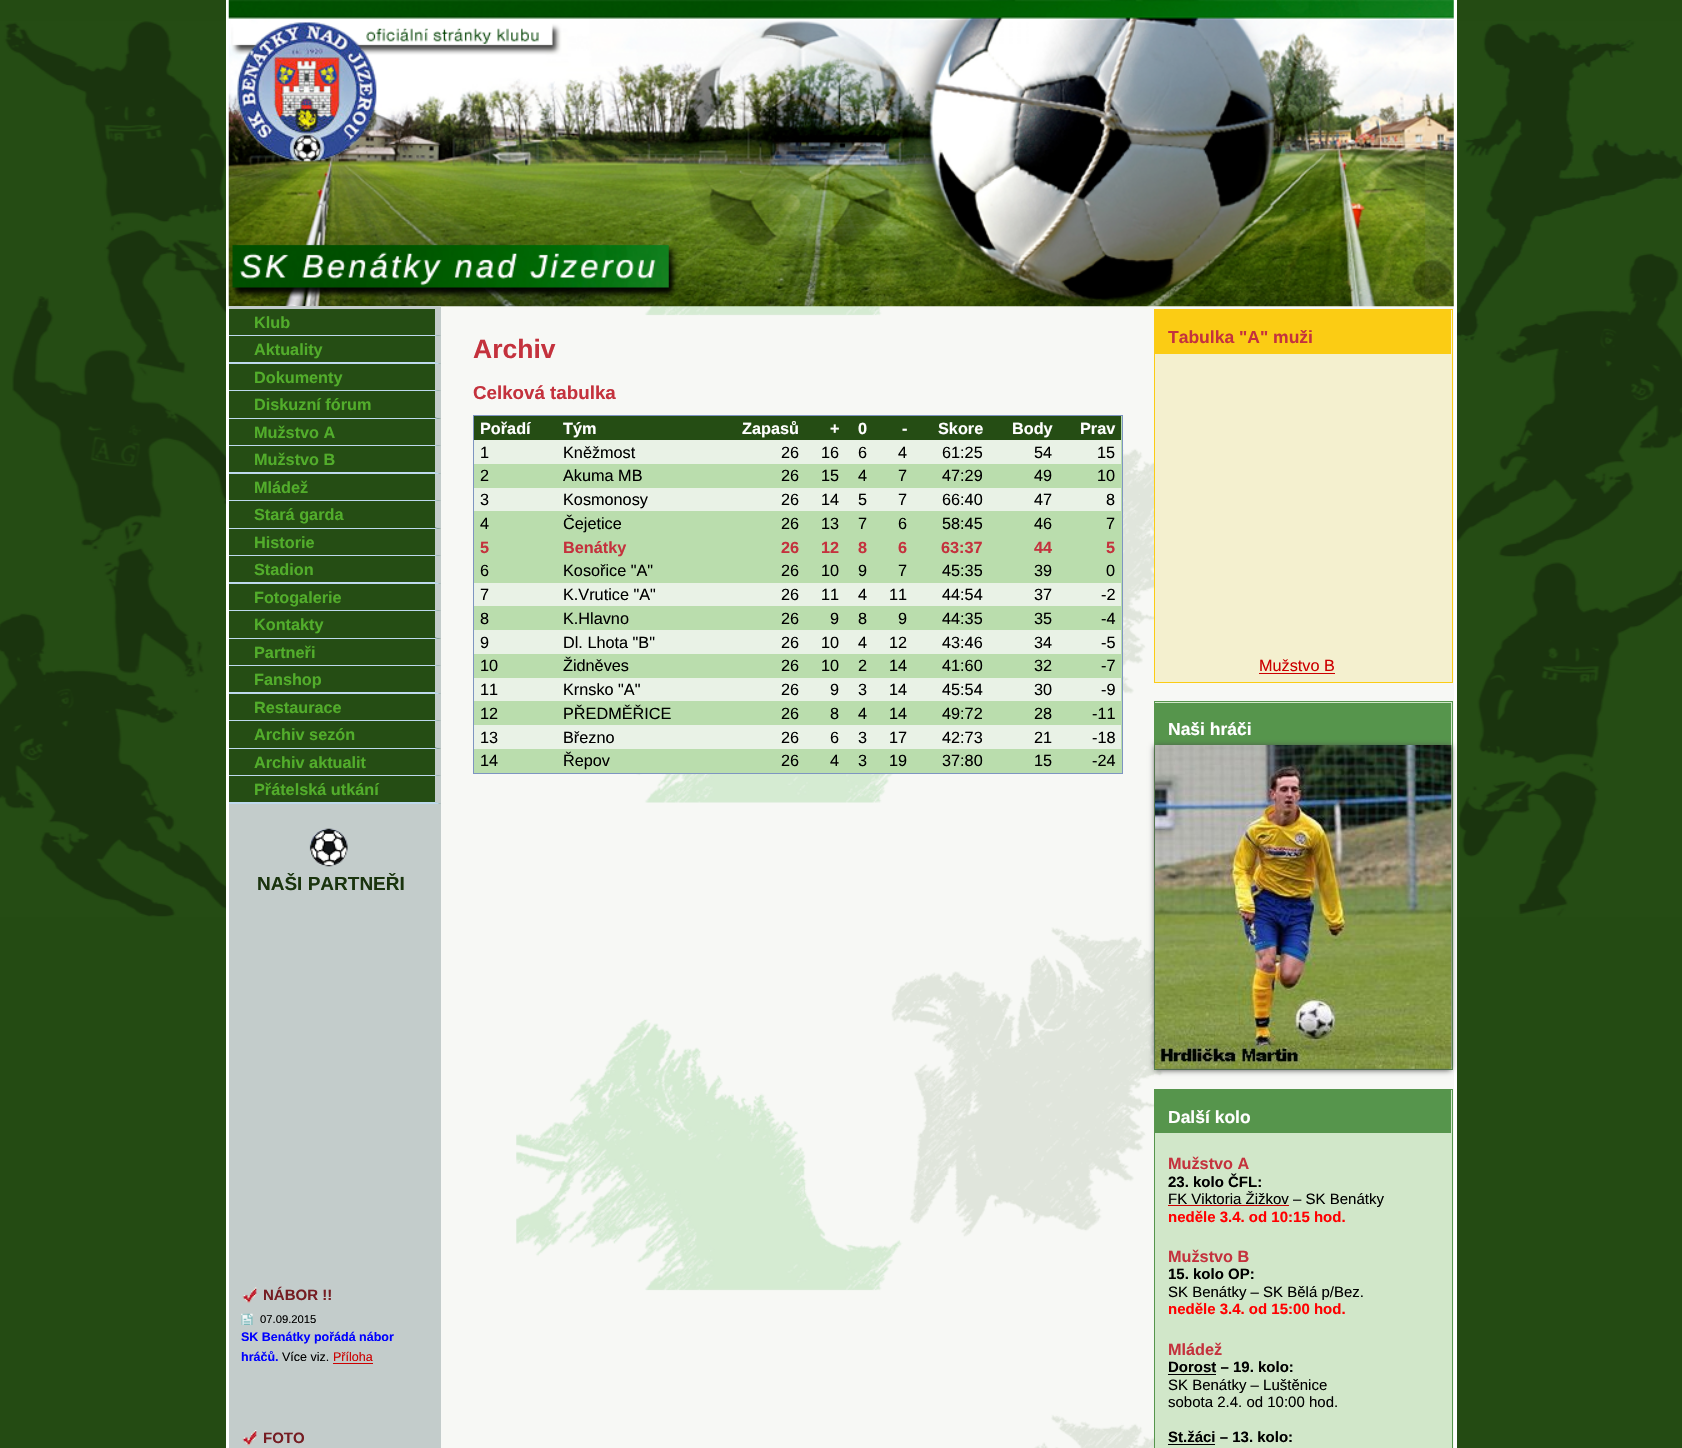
void draw(SkCanvas* canvas) {
	SkPaint paint;
	paint.setAntiAlias(true);
	auto svgPath = [&](const char* data, bool evenOdd = false) {
		SkPath result = *SkParsePath::FromSVGString(data);
		if (evenOdd) result.setFillType(SkPathFillType::kEvenOdd);
		return result;
	};
	canvas->clear(0xff244b13);
	canvas->drawImageRect(SkImages::DeferredFromEncodedData(SkData::MakeFromFileName("img1.png")), SkRect::MakeXYWH(0, 21, 1682, 896), SkSamplingOptions());
	paint.setColor(0xfff7f8f5);
	canvas->drawRect(SkRect::MakeXYWH(441, 0, 1013, 1448), paint);
	canvas->drawImageRect(SkImages::DeferredFromEncodedData(SkData::MakeFromFileName("img2.png")), SkRect::MakeXYWH(516, 306, 647, 1142), SkSamplingOptions());
	paint.setColor(0xffffffff);
	canvas->drawRect(SkRect::MakeXYWH(1454, 0, 3, 1448), paint);
	canvas->drawRect(SkRect::MakeXYWH(226, 0, 3, 1448), paint);
	canvas->drawImageRect(SkImages::DeferredFromEncodedData(SkData::MakeFromFileName("img3.png")), SkRect::MakeXYWH(228, 0, 1226, 307), SkSamplingOptions());
	paint.setColor(0xffc3cccb);
	canvas->drawRect(SkRect::MakeXYWH(229, 306, 212, 1142), paint);
	paint.setColor(0xff254d14);
	canvas->drawRect(SkRect::MakeXYWH(229, 309, 212, 495), paint);
	paint.setColor(0xffc3cccb);
	canvas->drawPath(svgPath("M441 309V336L435 335V309Z"), paint);
	paint.setColor(0xffbed9ed);
	canvas->drawPath(svgPath("M441 336H229V335H435Z"), paint);
	SkFont f1(fontMgr->matchFamilyStyle("Liberation Sans", SkFontStyle::Bold()), 16.25);
	f1.setSubpixel(true);
	paint.setColor(0xff52ad2b);
	canvas->drawString("Klub", 254, 328, f1, paint);
	paint.setColor(0xffc3cccb);
	canvas->drawPath(svgPath("M441 336V364L435 362.5V336Z"), paint);
	paint.setColor(0xffbed9ed);
	canvas->drawPath(svgPath("M441 364H229V362H435Z"), paint);
	paint.setColor(0xff52ad2b);
	canvas->drawString("Aktuality", 254, 355, f1, paint);
	paint.setColor(0xffc3cccb);
	canvas->drawPath(svgPath("M441 364V391L435 390V364Z"), paint);
	paint.setColor(0xffbed9ed);
	canvas->drawPath(svgPath("M441 391H229V390H435Z"), paint);
	paint.setColor(0xff52ad2b);
	canvas->drawString("Dokumenty", 254, 383, f1, paint);
	paint.setColor(0xffc3cccb);
	canvas->drawPath(svgPath("M441 391V419L435 417.5V391Z"), paint);
	paint.setColor(0xffbed9ed);
	canvas->drawPath(svgPath("M441 419H229V418H435Z"), paint);
	paint.setColor(0xff52ad2b);
	canvas->drawString("Diskuzní fórum", 254, 410, f1, paint);
	paint.setColor(0xffc3cccb);
	canvas->drawPath(svgPath("M441 419V446L435 445V419Z"), paint);
	paint.setColor(0xffbed9ed);
	canvas->drawPath(svgPath("M441 446H229V445H435Z"), paint);
	paint.setColor(0xff52ad2b);
	canvas->drawString("Mužstvo A", 254, 438, f1, paint);
	paint.setColor(0xffc3cccb);
	canvas->drawPath(svgPath("M441 446V474L435 472.5V446Z"), paint);
	paint.setColor(0xffbed9ed);
	canvas->drawPath(svgPath("M441 474H229V472H435Z"), paint);
	paint.setColor(0xff52ad2b);
	canvas->drawString("Mužstvo B", 254, 465, f1, paint);
	paint.setColor(0xffc3cccb);
	canvas->drawPath(svgPath("M441 474V501L435 500V474Z"), paint);
	paint.setColor(0xffbed9ed);
	canvas->drawPath(svgPath("M441 501H229V500H435Z"), paint);
	paint.setColor(0xff52ad2b);
	canvas->drawString("Mládež", 254, 493, f1, paint);
	paint.setColor(0xffc3cccb);
	canvas->drawPath(svgPath("M441 501V529L435 527.5V501Z"), paint);
	paint.setColor(0xffbed9ed);
	canvas->drawPath(svgPath("M441 529H229V528H435Z"), paint);
	paint.setColor(0xff52ad2b);
	canvas->drawString("Stará garda", 254, 520, f1, paint);
	paint.setColor(0xffc3cccb);
	canvas->drawPath(svgPath("M441 529V556L435 555V529Z"), paint);
	paint.setColor(0xffbed9ed);
	canvas->drawPath(svgPath("M441 556H229V555H435Z"), paint);
	paint.setColor(0xff52ad2b);
	canvas->drawString("Historie", 254, 548, f1, paint);
	paint.setColor(0xffc3cccb);
	canvas->drawPath(svgPath("M441 556V584L435 582.5V556Z"), paint);
	paint.setColor(0xffbed9ed);
	canvas->drawPath(svgPath("M441 584H229V582H435Z"), paint);
	paint.setColor(0xff52ad2b);
	canvas->drawString("Stadion", 254, 575, f1, paint);
	paint.setColor(0xffc3cccb);
	canvas->drawPath(svgPath("M441 584V611L435 610V584Z"), paint);
	paint.setColor(0xffbed9ed);
	canvas->drawPath(svgPath("M441 611H229V610H435Z"), paint);
	paint.setColor(0xff52ad2b);
	canvas->drawString("Fotogalerie", 254, 603, f1, paint);
	paint.setColor(0xffc3cccb);
	canvas->drawPath(svgPath("M441 611V639L435 637.5V611Z"), paint);
	paint.setColor(0xffbed9ed);
	canvas->drawPath(svgPath("M441 639H229V638H435Z"), paint);
	paint.setColor(0xff52ad2b);
	canvas->drawString("Kontakty", 254, 630, f1, paint);
	paint.setColor(0xffc3cccb);
	canvas->drawPath(svgPath("M441 639V666L435 665V639Z"), paint);
	paint.setColor(0xffbed9ed);
	canvas->drawPath(svgPath("M441 666H229V665H435Z"), paint);
	paint.setColor(0xff52ad2b);
	canvas->drawString("Partneři", 254, 658, f1, paint);
	paint.setColor(0xffc3cccb);
	canvas->drawPath(svgPath("M441 666V694L435 692.5V666Z"), paint);
	paint.setColor(0xffbed9ed);
	canvas->drawPath(svgPath("M441 694H229V692H435Z"), paint);
	paint.setColor(0xff52ad2b);
	canvas->drawString("Fanshop", 254, 685, f1, paint);
	paint.setColor(0xffc3cccb);
	canvas->drawPath(svgPath("M441 694V721L435 720V694Z"), paint);
	paint.setColor(0xffbed9ed);
	canvas->drawPath(svgPath("M441 721H229V720H435Z"), paint);
	paint.setColor(0xff52ad2b);
	canvas->drawString("Restaurace", 254, 713, f1, paint);
	paint.setColor(0xffc3cccb);
	canvas->drawPath(svgPath("M441 721V749L435 747.5V721Z"), paint);
	paint.setColor(0xffbed9ed);
	canvas->drawPath(svgPath("M441 749H229V748H435Z"), paint);
	paint.setColor(0xff52ad2b);
	canvas->drawString("Archiv sezón", 254, 740, f1, paint);
	paint.setColor(0xffc3cccb);
	canvas->drawPath(svgPath("M441 749V776L435 775V749Z"), paint);
	paint.setColor(0xffbed9ed);
	canvas->drawPath(svgPath("M441 776H229V775H435Z"), paint);
	paint.setColor(0xff52ad2b);
	canvas->drawString("Archiv aktualit", 254, 768, f1, paint);
	paint.setColor(0xffc3cccb);
	canvas->drawPath(svgPath("M441 776V804L435 802.5V776Z"), paint);
	paint.setColor(0xffbed9ed);
	canvas->drawPath(svgPath("M441 804H229V802H435Z"), paint);
	paint.setColor(0xff52ad2b);
	canvas->drawString("Přátelská utkání", 254, 795, f1, paint);
	canvas->drawImageRect(SkImages::DeferredFromEncodedData(SkData::MakeFromFileName("img4.png")), SkRect::MakeXYWH(309, 828, 39, 39), SkSamplingOptions());
	SkFont f2(fontMgr->matchFamilyStyle("Liberation Sans", SkFontStyle::Bold()), 19);
	f2.setSubpixel(true);
	paint.setColor(0xff1a340e);
	canvas->drawString("NAŠI PARTNEŘI", 257, 890, f2, paint);
	canvas->drawImageRect(SkImages::DeferredFromEncodedData(SkData::MakeFromFileName("img5.png")), SkRect::MakeXYWH(242, 1287, 15, 16), SkSamplingOptions());
	SkFont f3(fontMgr->matchFamilyStyle("Liberation Sans", SkFontStyle::Bold()), 15);
	f3.setSubpixel(true);
	paint.setColor(0xff751c22);
	canvas->drawString("NÁBOR !!", 263, 1300, f3, paint);
	canvas->drawImageRect(SkImages::DeferredFromEncodedData(SkData::MakeFromFileName("img6.png")), SkRect::MakeXYWH(241, 1313, 12, 12), SkSamplingOptions());
	SkFont f4(fontMgr->matchFamilyStyle("Liberation Sans", SkFontStyle::Normal()), 11.25);
	f4.setSubpixel(true);
	paint.setColor(0xff000000);
	canvas->drawString("07.09.2015", 260, 1323, f4, paint);
	SkFont f5(fontMgr->matchFamilyStyle("Liberation Sans", SkFontStyle::Bold()), 12.5);
	f5.setSubpixel(true);
	paint.setColor(0xff0000ff);
	canvas->drawString("SK Benátky pořádá nábor", 241, 1341, f5, paint);
	canvas->drawString("hráčů.", 241, 1361, f5, paint);
	SkFont f6(fontMgr->matchFamilyStyle("Liberation Sans", SkFontStyle::Normal()), 12.5);
	f6.setSubpixel(true);
	paint.setColor(0xff000000);
	canvas->drawString("Více viz.", 282, 1361, f6, paint);
	paint.setColor(0xffcc0000);
	canvas->drawString("Příloha", 333, 1361, f6, paint);
	canvas->drawRect(SkRect::MakeXYWH(333, 1363, 40, 1), paint);
	canvas->drawImageRect(SkImages::DeferredFromEncodedData(SkData::MakeFromFileName("img7.png")), SkRect::MakeXYWH(242, 1430, 15, 16), SkSamplingOptions());
	paint.setColor(0xff751c22);
	canvas->drawString("FOTO", 263, 1443, f3, paint);
	SkFont f7(fontMgr->matchFamilyStyle("Liberation Sans", SkFontStyle::Bold()), 26.5);
	f7.setSubpixel(true);
	paint.setColor(0xffc4323d);
	canvas->drawString("Archiv", 473, 358, f7, paint);
	SkFont f8(fontMgr->matchFamilyStyle("Liberation Sans", SkFontStyle::Bold()), 18.75);
	f8.setSubpixel(true);
	canvas->drawString("Celková tabulka", 473, 399, f8, paint);
	paint.setColor(0xffbaddad);
	canvas->drawRect(SkRect::MakeXYWH(473.5, 415.5, 649, 358), paint);
	paint.setStroke(true);
	paint.setStrokeWidth(1);
	paint.setColor(0xff7e95c1);
	canvas->drawRect(SkRect::MakeXYWH(473.5, 415.5, 649, 358), paint);
	paint.setStroke(false);
	paint.setColor(0xff254d14);
	canvas->drawRect(SkRect::MakeXYWH(474, 416, 647, 24), paint);
	paint.setColor(0xffffffff);
	canvas->drawString("Pořadí", 480, 434, f1, paint);
	canvas->drawString("Tým", 563, 434, f1, paint);
	canvas->drawString("Zapasů", 742, 434, f1, paint);
	canvas->drawString("+", 830, 434, f1, paint);
	canvas->drawString("0", 858, 434, f1, paint);
	canvas->drawString("-", 902, 434, f1, paint);
	canvas->drawString("Skore", 938, 434, f1, paint);
	canvas->drawString("Body", 1012, 434, f1, paint);
	canvas->drawString("Prav", 1080, 434, f1, paint);
	paint.setColor(0xffe9f2e6);
	canvas->drawRect(SkRect::MakeXYWH(474, 440, 647, 24), paint);
	SkFont f9(fontMgr->matchFamilyStyle("Liberation Sans", SkFontStyle::Normal()), 16.25);
	f9.setSubpixel(true);
	paint.setColor(0xff000000);
	canvas->drawString("1", 480, 458, f9, paint);
	canvas->drawString("Kněžmost", 563, 458, f9, paint);
	canvas->drawString("26", 781, 458, f9, paint);
	canvas->drawString("16", 821, 458, f9, paint);
	canvas->drawString("6", 858, 458, f9, paint);
	canvas->drawString("4", 898, 458, f9, paint);
	canvas->drawString("61:25", 942, 458, f9, paint);
	canvas->drawString("54", 1034, 458, f9, paint);
	canvas->drawString("15", 1097, 458, f9, paint);
	canvas->drawString("2", 480, 481, f9, paint);
	canvas->drawString("Akuma MB", 563, 481, f9, paint);
	canvas->drawString("26", 781, 481, f9, paint);
	canvas->drawString("15", 821, 481, f9, paint);
	canvas->drawString("4", 858, 481, f9, paint);
	canvas->drawString("7", 898, 481, f9, paint);
	canvas->drawString("47:29", 942, 481, f9, paint);
	canvas->drawString("49", 1034, 481, f9, paint);
	canvas->drawString("10", 1097, 481, f9, paint);
	paint.setColor(0xffe9f2e6);
	canvas->drawRect(SkRect::MakeXYWH(474, 488, 647, 23), paint);
	paint.setColor(0xff000000);
	canvas->drawString("3", 480, 505, f9, paint);
	canvas->drawString("Kosmonosy", 563, 505, f9, paint);
	canvas->drawString("26", 781, 505, f9, paint);
	canvas->drawString("14", 821, 505, f9, paint);
	canvas->drawString("5", 858, 505, f9, paint);
	canvas->drawString("7", 898, 505, f9, paint);
	canvas->drawString("66:40", 942, 505, f9, paint);
	canvas->drawString("47", 1034, 505, f9, paint);
	canvas->drawString("8", 1106, 505, f9, paint);
	canvas->drawString("4", 480, 529, f9, paint);
	canvas->drawString("Čejetice", 563, 529, f9, paint);
	canvas->drawString("26", 781, 529, f9, paint);
	canvas->drawString("13", 821, 529, f9, paint);
	canvas->drawString("7", 858, 529, f9, paint);
	canvas->drawString("6", 898, 529, f9, paint);
	canvas->drawString("58:45", 942, 529, f9, paint);
	canvas->drawString("46", 1034, 529, f9, paint);
	canvas->drawString("7", 1106, 529, f9, paint);
	paint.setColor(0xffc4323d);
	canvas->drawString("5", 480, 553, f1, paint);
	canvas->drawString("Benátky", 563, 553, f1, paint);
	canvas->drawString("26", 781, 553, f1, paint);
	canvas->drawString("12", 821, 553, f1, paint);
	canvas->drawString("8", 858, 553, f1, paint);
	canvas->drawString("6", 898, 553, f1, paint);
	canvas->drawString("63:37", 941, 553, f1, paint);
	canvas->drawString("44", 1034, 553, f1, paint);
	canvas->drawString("5", 1106, 553, f1, paint);
	paint.setColor(0xff000000);
	canvas->drawString("6", 480, 576, f9, paint);
	canvas->drawString("Kosořice \"A\"", 563, 576, f9, paint);
	canvas->drawString("26", 781, 576, f9, paint);
	canvas->drawString("10", 821, 576, f9, paint);
	canvas->drawString("9", 858, 576, f9, paint);
	canvas->drawString("7", 898, 576, f9, paint);
	canvas->drawString("45:35", 942, 576, f9, paint);
	canvas->drawString("39", 1034, 576, f9, paint);
	canvas->drawString("0", 1106, 576, f9, paint);
	paint.setColor(0xffe9f2e6);
	canvas->drawRect(SkRect::MakeXYWH(474, 583, 647, 23), paint);
	paint.setColor(0xff000000);
	canvas->drawString("7", 480, 600, f9, paint);
	canvas->drawString("K.Vrutice \"A\"", 563, 600, f9, paint);
	canvas->drawString("26", 781, 600, f9, paint);
	canvas->drawString("11", 821, 600, f9, paint);
	canvas->drawString("4", 858, 600, f9, paint);
	canvas->drawString("11", 889, 600, f9, paint);
	canvas->drawString("44:54", 942, 600, f9, paint);
	canvas->drawString("37", 1034, 600, f9, paint);
	canvas->drawString("-2", 1101, 600, f9, paint);
	canvas->drawString("8", 480, 624, f9, paint);
	canvas->drawString("K.Hlavno", 563, 624, f9, paint);
	canvas->drawString("26", 781, 624, f9, paint);
	canvas->drawString("9", 830, 624, f9, paint);
	canvas->drawString("8", 858, 624, f9, paint);
	canvas->drawString("9", 898, 624, f9, paint);
	canvas->drawString("44:35", 942, 624, f9, paint);
	canvas->drawString("35", 1034, 624, f9, paint);
	canvas->drawString("-4", 1101, 624, f9, paint);
	paint.setColor(0xffe9f2e6);
	canvas->drawRect(SkRect::MakeXYWH(474, 630, 647, 24), paint);
	paint.setColor(0xff000000);
	canvas->drawString("9", 480, 648, f9, paint);
	canvas->drawString("Dl. Lhota \"B\"", 563, 648, f9, paint);
	canvas->drawString("26", 781, 648, f9, paint);
	canvas->drawString("10", 821, 648, f9, paint);
	canvas->drawString("4", 858, 648, f9, paint);
	canvas->drawString("12", 889, 648, f9, paint);
	canvas->drawString("43:46", 942, 648, f9, paint);
	canvas->drawString("34", 1034, 648, f9, paint);
	canvas->drawString("-5", 1101, 648, f9, paint);
	canvas->drawString("10", 480, 671, f9, paint);
	canvas->drawString("Židněves", 563, 671, f9, paint);
	canvas->drawString("26", 781, 671, f9, paint);
	canvas->drawString("10", 821, 671, f9, paint);
	canvas->drawString("2", 858, 671, f9, paint);
	canvas->drawString("14", 889, 671, f9, paint);
	canvas->drawString("41:60", 942, 671, f9, paint);
	canvas->drawString("32", 1034, 671, f9, paint);
	canvas->drawString("-7", 1101, 671, f9, paint);
	paint.setColor(0xffe9f2e6);
	canvas->drawRect(SkRect::MakeXYWH(474, 678, 647, 23), paint);
	paint.setColor(0xff000000);
	canvas->drawString("11", 480, 695, f9, paint);
	canvas->drawString("Krnsko \"A\"", 563, 695, f9, paint);
	canvas->drawString("26", 781, 695, f9, paint);
	canvas->drawString("9", 830, 695, f9, paint);
	canvas->drawString("3", 858, 695, f9, paint);
	canvas->drawString("14", 889, 695, f9, paint);
	canvas->drawString("45:54", 942, 695, f9, paint);
	canvas->drawString("30", 1034, 695, f9, paint);
	canvas->drawString("-9", 1101, 695, f9, paint);
	canvas->drawString("12", 480, 719, f9, paint);
	canvas->drawString("PŘEDMĚŘICE", 563, 719, f9, paint);
	canvas->drawString("26", 781, 719, f9, paint);
	canvas->drawString("8", 830, 719, f9, paint);
	canvas->drawString("4", 858, 719, f9, paint);
	canvas->drawString("14", 889, 719, f9, paint);
	canvas->drawString("49:72", 942, 719, f9, paint);
	canvas->drawString("28", 1034, 719, f9, paint);
	canvas->drawString("-11", 1092, 719, f9, paint);
	paint.setColor(0xffe9f2e6);
	canvas->drawRect(SkRect::MakeXYWH(474, 725, 647, 24), paint);
	paint.setColor(0xff000000);
	canvas->drawString("13", 480, 743, f9, paint);
	canvas->drawString("Březno", 563, 743, f9, paint);
	canvas->drawString("26", 781, 743, f9, paint);
	canvas->drawString("6", 830, 743, f9, paint);
	canvas->drawString("3", 858, 743, f9, paint);
	canvas->drawString("17", 889, 743, f9, paint);
	canvas->drawString("42:73", 942, 743, f9, paint);
	canvas->drawString("21", 1034, 743, f9, paint);
	canvas->drawString("-18", 1092, 743, f9, paint);
	canvas->drawString("14", 480, 766, f9, paint);
	canvas->drawString("Řepov", 563, 766, f9, paint);
	canvas->drawString("26", 781, 766, f9, paint);
	canvas->drawString("4", 830, 766, f9, paint);
	canvas->drawString("3", 858, 766, f9, paint);
	canvas->drawString("19", 889, 766, f9, paint);
	canvas->drawString("37:80", 942, 766, f9, paint);
	canvas->drawString("15", 1034, 766, f9, paint);
	canvas->drawString("-24", 1092, 766, f9, paint);
	paint.setColor(0xfff4f0cf);
	canvas->drawRect(SkRect::MakeXYWH(1154.5, 309.5, 298, 373), paint);
	paint.setStroke(true);
	paint.setColor(0xfffbcc14);
	canvas->drawRect(SkRect::MakeXYWH(1154.5, 309.5, 298, 373), paint);
	paint.setStroke(false);
	canvas->drawRect(SkRect::MakeXYWH(1155, 310, 296, 44), paint);
	SkFont f10(fontMgr->matchFamilyStyle("Liberation Sans", SkFontStyle::Bold()), 17.5);
	f10.setSubpixel(true);
	paint.setColor(0xffc4323d);
	canvas->drawString("Tabulka \"A\" muži", 1168, 343, f10, paint);
	paint.setColor(0xffcc0000);
	canvas->drawString("Mužstvo B", 1259, 671, f9, paint);
	canvas->drawRect(SkRect::MakeXYWH(1259, 673, 76, 1), paint);
	paint.setColor(0xffd1e7c9);
	canvas->drawRect(SkRect::MakeXYWH(1154.5, 701.5, 298, 368), paint);
	paint.setStroke(true);
	paint.setColor(0xff56954c);
	canvas->drawRect(SkRect::MakeXYWH(1154.5, 701.5, 298, 368), paint);
	paint.setStroke(false);
	canvas->drawRect(SkRect::MakeXYWH(1155, 703, 296, 42), paint);
	paint.setColor(0xffffffff);
	canvas->drawString("Naši hráči", 1168, 735, f10, paint);
	paint.setColor(0xff4a4a4a);
	paint.setMaskFilter(SkMaskFilter::MakeBlur(kNormal_SkBlurStyle, 3));
	canvas->drawRect(SkRect::MakeXYWH(1155, 746, 296, 324), paint);
	paint.setMaskFilter(nullptr);
	canvas->drawImageRect(SkImages::DeferredFromEncodedData(SkData::MakeFromFileName("img8.png")), SkRect::MakeXYWH(1155, 745, 297, 324), SkSamplingOptions());
	paint.setColor(0xffd1e7c9);
	canvas->drawRect(SkRect::MakeXYWH(1154.5, 1089.5, 298, 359), paint);
	paint.setStroke(true);
	paint.setColor(0xff56954c);
	canvas->drawRect(SkRect::MakeXYWH(1154.5, 1089.5, 298, 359), paint);
	paint.setStroke(false);
	canvas->drawRect(SkRect::MakeXYWH(1155, 1090, 296, 43), paint);
	paint.setColor(0xffffffff);
	canvas->drawString("Další kolo", 1168, 1123, f10, paint);
	paint.setColor(0xffc4323d);
	canvas->drawString("Mužstvo A", 1168, 1169, f1, paint);
	paint.setColor(0xff000000);
	canvas->drawString("23. kolo ČFL:", 1168, 1187, f3, paint);
	paint.setColor(0xffcc0000);
	canvas->drawRect(SkRect::MakeXYWH(1168, 1205, 121, 1), paint);
	SkFont f11(fontMgr->matchFamilyStyle("Liberation Sans", SkFontStyle::Normal()), 15);
	f11.setSubpixel(true);
	paint.setColor(0xff000000);
	canvas->drawString("FK Viktoria Žižkov – SK Benátky", 1168, 1204, f11, paint);
	paint.setColor(0xffff0000);
	canvas->drawString("neděle 3.4. od 10:15 hod.", 1168, 1222, f3, paint);
	paint.setColor(0xffc4323d);
	canvas->drawString("Mužstvo B", 1168, 1262, f1, paint);
	paint.setColor(0xff000000);
	canvas->drawString("15. kolo OP:", 1168, 1279, f3, paint);
	canvas->drawString("SK Benátky – SK Bělá p/Bez.", 1168, 1297, f11, paint);
	paint.setColor(0xffff0000);
	canvas->drawString("neděle 3.4. od 15:00 hod.", 1168, 1314, f3, paint);
	paint.setColor(0xffc4323d);
	canvas->drawString("Mládež", 1168, 1355, f1, paint);
	paint.setColor(0xff000000);
	canvas->drawString("Dorost – 19. kolo:", 1168, 1372, f3, paint);
	canvas->drawRect(SkRect::MakeXYWH(1168, 1374, 48, 1), paint);
	canvas->drawString("SK Benátky – Luštěnice", 1168, 1390, f11, paint);
	canvas->drawString("sobota 2.4. od 10:00 hod.", 1168, 1407, f11, paint);
	canvas->drawString("St.žáci – 13. kolo:", 1168, 1442, f3, paint);
	canvas->drawRect(SkRect::MakeXYWH(1168, 1444, 47, 1), paint);
}
